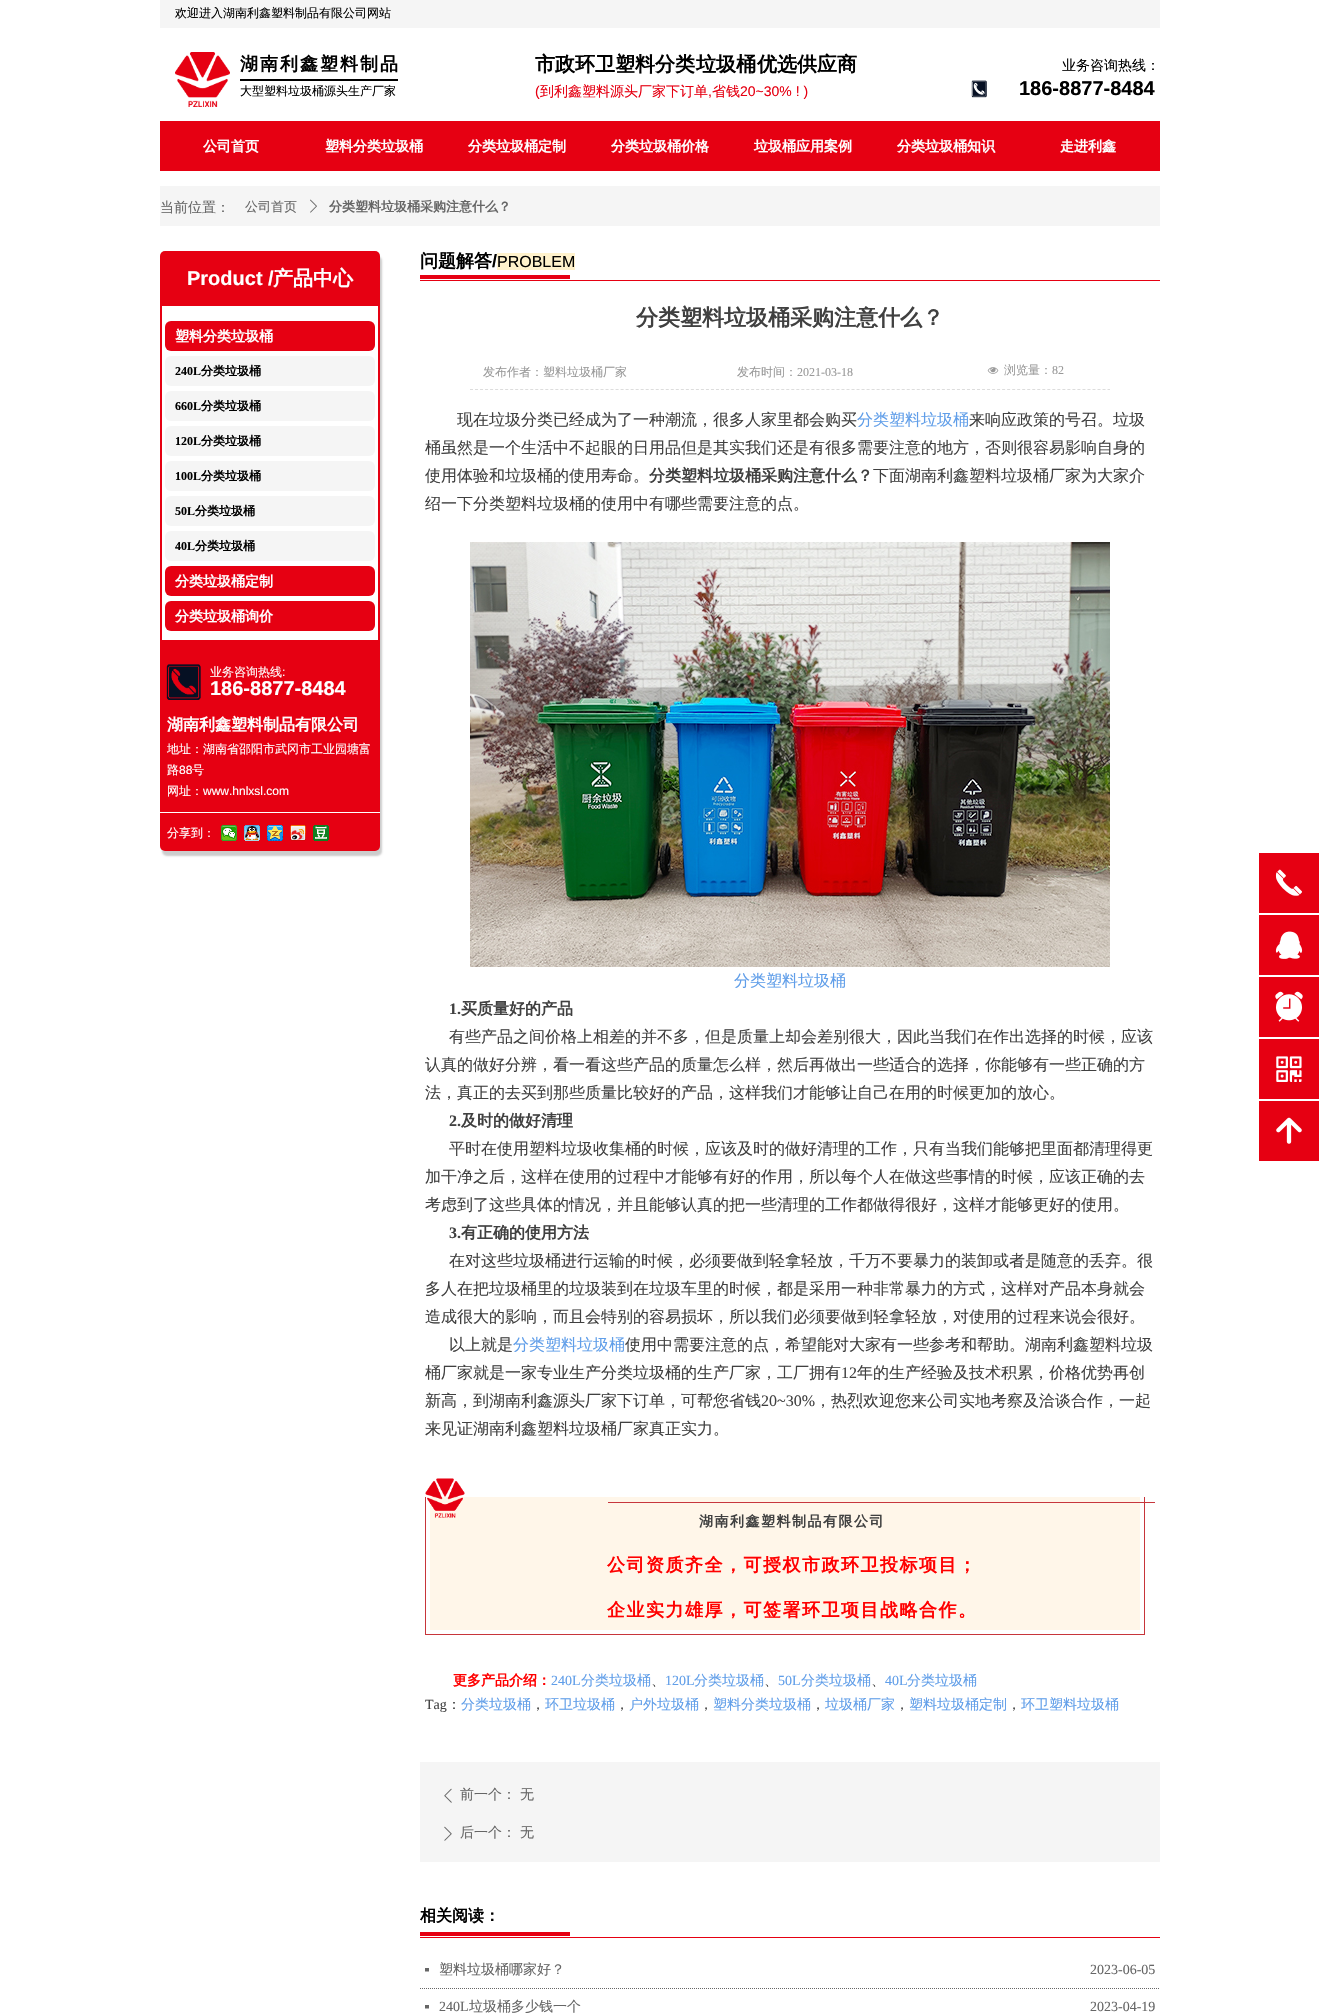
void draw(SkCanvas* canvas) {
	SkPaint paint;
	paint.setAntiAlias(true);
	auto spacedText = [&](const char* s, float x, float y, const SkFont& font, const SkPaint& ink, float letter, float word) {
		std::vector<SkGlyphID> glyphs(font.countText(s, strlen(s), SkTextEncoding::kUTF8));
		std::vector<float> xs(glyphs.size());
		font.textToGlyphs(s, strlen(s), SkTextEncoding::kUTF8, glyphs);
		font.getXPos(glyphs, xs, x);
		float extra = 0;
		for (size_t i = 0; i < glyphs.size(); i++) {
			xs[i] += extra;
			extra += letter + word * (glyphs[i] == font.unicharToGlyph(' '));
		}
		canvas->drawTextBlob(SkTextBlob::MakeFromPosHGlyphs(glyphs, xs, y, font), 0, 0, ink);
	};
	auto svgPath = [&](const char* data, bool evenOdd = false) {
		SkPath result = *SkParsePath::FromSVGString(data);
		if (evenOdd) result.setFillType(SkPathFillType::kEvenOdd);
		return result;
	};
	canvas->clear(0xffffffff);
	paint.setColor(0xfff5f5f5);
	canvas->drawRect(SkRect::MakeXYWH(160, 0, 1000, 28), paint);
	SkFont f1(fontMgr->matchFamilyStyle("WenQuanYi Zen Hei", SkFontStyle(500, SkFontStyle::kNormal_Width, SkFontStyle::kUpright_Slant)), 12);
	f1.setSubpixel(true);
	paint.setColor(0xff000000);
	canvas->drawString("欢迎进入湖南利鑫塑料制品有限公司网站", 175, 17, f1, paint);
	canvas->drawImageRect(SkImages::DeferredFromEncodedData(SkData::MakeFromFileName("img1.png")), SkRect::MakeXYWH(175, 52, 55, 55), SkSamplingOptions());
	SkFont f2(fontMgr->matchFamilyStyle("WenQuanYi Zen Hei", SkFontStyle::Bold()), 18);
	f2.setSubpixel(true);
	spacedText("湖南利鑫塑料制品", 240, 70, f2, paint, 2, 0);
	SkFont f3(fontMgr->matchFamilyStyle("WenQuanYi Zen Hei", SkFontStyle::Bold()), 20);
	f3.setSubpixel(true);
	canvas->drawString("市政环卫塑料分类", 535, 71, f3, paint);
	canvas->drawString("垃圾桶", 696, 71, f3, paint);
	canvas->drawString("优选供应商", 757, 71, f3, paint);
	SkFont f4(fontMgr->matchFamilyStyle("WenQuanYi Zen Hei", SkFontStyle(500, SkFontStyle::kNormal_Width, SkFontStyle::kUpright_Slant)), 14);
	f4.setSubpixel(true);
	canvas->drawString("业务咨询热线：", 1062, 70, f4, paint);
	canvas->drawRect(SkRect::MakeXYWH(240, 79, 158, 2), paint);
	SkFont f5(fontMgr->matchFamilyStyle("Liberation Sans", SkFontStyle::Normal()), 14);
	f5.setSubpixel(true);
	paint.setColor(0xffe60012);
	canvas->drawString("(", 535, 96, f5, paint);
	canvas->drawString("到利鑫塑料源头厂家下订单", 540, 96, f4, paint);
	canvas->drawString(",", 708, 96, f5, paint);
	canvas->drawString("省钱", 712, 96, f4, paint);
	canvas->drawString("20~30% ! )", 740, 96, f5, paint);
	canvas->drawImageRect(SkImages::DeferredFromEncodedData(SkData::MakeFromFileName("img2.png")), SkRect::MakeXYWH(971, 80, 16, 18), SkSamplingOptions());
	SkFont f6(fontMgr->matchFamilyStyle("Liberation Sans", SkFontStyle::Bold()), 20);
	f6.setSubpixel(true);
	paint.setColor(0xff000000);
	canvas->drawString("186-8877-8484", 1019, 95, f6, paint);
	canvas->drawString("大型塑料垃圾桶源头生产厂家", 240, 95, f1, paint);
	paint.setColor(0xffe60012);
	canvas->drawRect(SkRect::MakeXYWH(160, 121, 1000, 50), paint);
	SkFont f7(fontMgr->matchFamilyStyle("WenQuanYi Zen Hei", SkFontStyle::Bold()), 14);
	f7.setSubpixel(true);
	paint.setColor(0xffffffff);
	canvas->drawString("公司首页", 203, 151, f7, paint);
	canvas->drawString("塑料分类垃圾桶", 325, 151, f7, paint);
	canvas->drawString("分类垃圾桶定制", 468, 151, f7, paint);
	canvas->drawString("分类垃圾桶价格", 611, 151, f7, paint);
	canvas->drawString("垃圾桶应用案例", 754, 151, f7, paint);
	canvas->drawString("分类垃圾桶知识", 897, 151, f7, paint);
	canvas->drawString("走进利鑫", 1060, 151, f7, paint);
	paint.setColor(0xfff5f5f5);
	canvas->drawRect(SkRect::MakeXYWH(160, 186, 1000, 40), paint);
	paint.setColor(0xff666666);
	canvas->drawString("当前位置：", 160, 212, f4, paint);
	SkFont f8(fontMgr->matchFamilyStyle("WenQuanYi Zen Hei", SkFontStyle(500, SkFontStyle::kNormal_Width, SkFontStyle::kUpright_Slant)), 13);
	f8.setSubpixel(true);
	canvas->drawString("公司首页", 245, 211, f8, paint);
	canvas->drawImageRect(SkImages::DeferredFromEncodedData(SkData::MakeFromFileName("img3.png")), SkRect::MakeXYWH(310, 199, 7, 14), SkSamplingOptions());
	SkFont f9(fontMgr->matchFamilyStyle("WenQuanYi Zen Hei", SkFontStyle::Bold()), 13);
	f9.setSubpixel(true);
	canvas->drawString("分类塑料垃圾桶采购注意什么？", 329, 211, f9, paint);
	paint.setColor(0xff000000);
	canvas->drawString("问题解答", 420, 267, f2, paint);
	SkFont f10(fontMgr->matchFamilyStyle("Liberation Sans", SkFontStyle::Bold()), 18);
	f10.setSubpixel(true);
	canvas->drawString("/", 492, 267, f10, paint);
	paint.setColor(0xfffff2cc);
	canvas->drawRect(SkRect::MakeXYWH(497, 253, 78, 17), paint);
	SkFont f11(fontMgr->matchFamilyStyle("Liberation Sans", SkFontStyle::Normal()), 16);
	f11.setSubpixel(true);
	paint.setColor(0xff000000);
	canvas->drawString("PROBLEM", 497, 267, f11, paint);
	paint.setColor(0xffcccccc);
	paint.setMaskFilter(SkMaskFilter::MakeBlur(kNormal_SkBlurStyle, 1));
	canvas->drawRoundRect(SkRect::MakeXYWH(162, 256, 220, 600), 5, 5, paint);
	paint.setMaskFilter(nullptr);
	paint.setColor(0xffe60012);
	canvas->drawRoundRect(SkRect::MakeXYWH(160, 251, 220, 600), 5, 5, paint);
	paint.setColor(0xffffffff);
	canvas->drawString("Product /", 187, 285, f6, paint);
	canvas->drawString("产品中心", 273, 285, f3, paint);
	canvas->drawRect(SkRect::MakeXYWH(162, 306, 216, 334), paint);
	paint.setColor(0xffe60012);
	canvas->drawRoundRect(SkRect::MakeXYWH(165, 321, 210, 30), 6, 6, paint);
	paint.setColor(0xffffffff);
	canvas->drawString("塑料分类垃圾桶", 175, 341, f7, paint);
	paint.setColor(0xfff5f5f5);
	canvas->drawRoundRect(SkRect::MakeXYWH(165, 356, 210, 30), 6, 6, paint);
	SkFont f12(fontMgr->matchFamilyStyle("Liberation Serif", SkFontStyle::Bold()), 12);
	f12.setSubpixel(true);
	paint.setColor(0xff000000);
	canvas->drawString("240L", 175, 375, f12, paint);
	SkFont f13(fontMgr->matchFamilyStyle("WenQuanYi Zen Hei", SkFontStyle::Bold()), 12);
	f13.setSubpixel(true);
	canvas->drawString("分类垃圾桶", 201, 375, f13, paint);
	paint.setColor(0xfff5f5f5);
	canvas->drawRoundRect(SkRect::MakeXYWH(165, 391, 210, 30), 6, 6, paint);
	paint.setColor(0xff000000);
	canvas->drawString("660L", 175, 410, f12, paint);
	canvas->drawString("分类垃圾桶", 201, 410, f13, paint);
	paint.setColor(0xfff5f5f5);
	canvas->drawRoundRect(SkRect::MakeXYWH(165, 426, 210, 30), 6, 6, paint);
	paint.setColor(0xff000000);
	canvas->drawString("120L", 175, 445, f12, paint);
	canvas->drawString("分类垃圾桶", 201, 445, f13, paint);
	paint.setColor(0xfff5f5f5);
	canvas->drawRoundRect(SkRect::MakeXYWH(165, 461, 210, 30), 6, 6, paint);
	paint.setColor(0xff000000);
	canvas->drawString("100L", 175, 480, f12, paint);
	canvas->drawString("分类垃圾桶", 201, 480, f13, paint);
	paint.setColor(0xfff5f5f5);
	canvas->drawRoundRect(SkRect::MakeXYWH(165, 496, 210, 30), 6, 6, paint);
	paint.setColor(0xff000000);
	canvas->drawString("50L", 175, 515, f12, paint);
	canvas->drawString("分类垃圾桶", 195, 515, f13, paint);
	paint.setColor(0xfff5f5f5);
	canvas->drawRoundRect(SkRect::MakeXYWH(165, 531, 210, 30), 6, 6, paint);
	paint.setColor(0xff000000);
	canvas->drawString("40L", 175, 550, f12, paint);
	canvas->drawString("分类垃圾桶", 195, 550, f13, paint);
	paint.setColor(0xffe60012);
	canvas->drawRoundRect(SkRect::MakeXYWH(165, 566, 210, 30), 6, 6, paint);
	paint.setColor(0xffffffff);
	canvas->drawString("分类垃圾桶定制", 175, 586, f7, paint);
	paint.setColor(0xffe60012);
	canvas->drawRoundRect(SkRect::MakeXYWH(165, 601, 210, 30), 6, 6, paint);
	paint.setColor(0xffffffff);
	canvas->drawString("分类垃圾桶询价", 175, 621, f7, paint);
	canvas->drawImageRect(SkImages::DeferredFromEncodedData(SkData::MakeFromFileName("img4.png")), SkRect::MakeXYWH(166, 664, 35, 36), SkSamplingOptions());
	canvas->drawString("业务咨询热线", 210, 676, f1, paint);
	SkFont f14(fontMgr->matchFamilyStyle("Liberation Sans", SkFontStyle::Normal()), 12);
	f14.setSubpixel(true);
	canvas->drawString(":", 282, 676, f14, paint);
	canvas->drawString("186-8877-8484", 210, 695, f6, paint);
	SkFont f15(fontMgr->matchFamilyStyle("WenQuanYi Zen Hei", SkFontStyle::Bold()), 16);
	f15.setSubpixel(true);
	canvas->drawString("湖南利鑫塑料制品有限公司", 167, 730, f15, paint);
	canvas->drawString("地址：湖南省邵阳市武冈市工业园塘富", 167, 753, f1, paint);
	canvas->drawString("路", 167, 774, f1, paint);
	canvas->drawString("88", 179, 774, f14, paint);
	canvas->drawString("号", 192, 774, f1, paint);
	canvas->drawString("网址：", 167, 795, f1, paint);
	canvas->drawString("www.hnlxsl.com", 203, 795, f14, paint);
	canvas->drawRect(SkRect::MakeXYWH(160, 812, 220, 1), paint);
	canvas->drawString("分享到：", 167, 837, f1, paint);
	canvas->drawImageRect(SkImages::DeferredFromEncodedData(SkData::MakeFromFileName("img5.png")), SkRect::MakeXYWH(221, 825, 16, 16), SkSamplingOptions());
	canvas->drawImageRect(SkImages::DeferredFromEncodedData(SkData::MakeFromFileName("img6.png")), SkRect::MakeXYWH(244, 825, 16, 16), SkSamplingOptions());
	canvas->drawImageRect(SkImages::DeferredFromEncodedData(SkData::MakeFromFileName("img7.png")), SkRect::MakeXYWH(267, 825, 16, 16), SkSamplingOptions());
	canvas->drawImageRect(SkImages::DeferredFromEncodedData(SkData::MakeFromFileName("img8.png")), SkRect::MakeXYWH(290, 825, 16, 16), SkSamplingOptions());
	canvas->drawImageRect(SkImages::DeferredFromEncodedData(SkData::MakeFromFileName("img9.png")), SkRect::MakeXYWH(313, 825, 16, 16), SkSamplingOptions());
	paint.setColor(0xffe60012);
	canvas->drawRect(SkRect::MakeXYWH(420, 275, 150, 4), paint);
	canvas->drawRect(SkRect::MakeXYWH(420, 280, 740, 1), paint);
	SkFont f16(fontMgr->matchFamilyStyle("WenQuanYi Zen Hei", SkFontStyle::Bold()), 22);
	f16.setSubpixel(true);
	paint.setColor(0xff404040);
	canvas->drawString("分类塑料垃圾桶采购注意什么？", 636, 325, f16, paint);
	paint.setColor(0xff999999);
	canvas->drawString("发布作者：塑料垃圾桶厂家", 483, 376, f1, paint);
	canvas->drawString("发布时间：", 737, 376, f1, paint);
	SkFont f17(fontMgr->matchFamilyStyle("Liberation Serif", SkFontStyle::Normal()), 12);
	f17.setSubpixel(true);
	canvas->drawString("2021-03-18", 797, 376, f17, paint);
	canvas->drawImageRect(SkImages::DeferredFromEncodedData(SkData::MakeFromFileName("img10.png")), SkRect::MakeXYWH(987, 367, 12, 7), SkSamplingOptions());
	canvas->drawString("浏览量：", 1004, 374, f1, paint);
	canvas->drawString("82", 1052, 374, f17, paint);
	paint.setStroke(true);
	paint.setStrokeWidth(1);
	paint.setColor(0xffdddddd);
	paint.setPathEffect(SkDashPathEffect::Make({{3, 2.02f}}, 0));
	canvas->drawPath(svgPath("M470 389.5H1110"), paint);
	paint.setPathEffect(nullptr);
	SkFont f18(fontMgr->matchFamilyStyle("WenQuanYi Zen Hei", SkFontStyle(500, SkFontStyle::kNormal_Width, SkFontStyle::kUpright_Slant)), 16);
	f18.setSubpixel(true);
	paint.setStroke(false);
	paint.setColor(0xff404040);
	canvas->drawString("现在垃圾分类已经成为了一种潮流，很多人家里都会购买", 457, 425, f18, paint);
	paint.setColor(0xff609ee9);
	canvas->drawString("分类塑料垃圾桶", 857, 425, f18, paint);
	paint.setColor(0xff404040);
	canvas->drawString("来响应政策的号召。垃圾", 969, 425, f18, paint);
	canvas->drawString("桶虽然是一个生活中不起眼的日用品但是其实我们还是有很多需要注意的地方，否则很容易影响自身的", 425, 453, f18, paint);
	canvas->drawString("使用体验和垃圾桶的使用寿命。", 425, 481, f18, paint);
	canvas->drawString("分类塑料垃圾桶采购注意什么？", 649, 481, f15, paint);
	canvas->drawString("下面湖南利鑫塑料垃圾桶厂家为大家介", 873, 481, f18, paint);
	canvas->drawString("绍一下分类塑料垃圾桶的使用中有哪些需要注意的点。", 425, 509, f18, paint);
	canvas->drawImageRect(SkImages::DeferredFromEncodedData(SkData::MakeFromFileName("img11.png")), SkRect::MakeXYWH(470, 542, 640, 425), SkSamplingOptions());
	paint.setColor(0xff609ee9);
	canvas->drawString("分类塑料垃圾桶", 734, 986, f18, paint);
	SkFont f19(fontMgr->matchFamilyStyle("Liberation Serif", SkFontStyle::Bold()), 16);
	f19.setSubpixel(true);
	paint.setColor(0xff404040);
	canvas->drawString("1.", 449, 1014, f19, paint);
	canvas->drawString("买质量好的产品", 461, 1014, f15, paint);
	canvas->drawString("有些产品之间价格上相差的并不多，但是质量上却会差别很大，因此当我们在作出选择的时候，应该", 449, 1042, f18, paint);
	canvas->drawString("认真的做好分辨，看一看这些产品的质量怎么样，然后再做出一些适合的选择，你能够有一些正确的方", 425, 1070, f18, paint);
	canvas->drawString("法，真正的去买到那些质量比较好的产品，这样我们才能够让自己在用的时候更加的放心。", 425, 1098, f18, paint);
	canvas->drawString("2.", 449, 1126, f19, paint);
	canvas->drawString("及时的做好清理", 461, 1126, f15, paint);
	canvas->drawString("平时在使用塑料垃圾收集桶的时候，应该及时的做好清理的工作，只有当我们能够把里面都清理得更", 449, 1154, f18, paint);
	canvas->drawString("加干净之后，这样在使用的过程中才能够有好的作用，所以每个人在做这些事情的时候，应该正确的去", 425, 1182, f18, paint);
	canvas->drawString("考虑到了这些具体的情况，并且能够认真的把一些清理的工作都做得很好，这样才能够更好的使用。", 425, 1210, f18, paint);
	canvas->drawString("3.", 449, 1238, f19, paint);
	canvas->drawString("有正确的使用方法", 461, 1238, f15, paint);
	canvas->drawString("在对这些垃圾桶进行运输的时候，必须要做到轻拿轻放，千万不要暴力的装卸或者是随意的丢弃。很", 449, 1266, f18, paint);
	canvas->drawString("多人在把垃圾桶里的垃圾装到在垃圾车里的时候，都是采用一种非常暴力的方式，这样对产品本身就会", 425, 1294, f18, paint);
	canvas->drawString("造成很大的影响，而且会特别的容易损坏，所以我们必须要做到轻拿轻放，对使用的过程来说会很好。", 425, 1322, f18, paint);
	canvas->drawString("以上就是", 449, 1350, f18, paint);
	paint.setColor(0xff609ee9);
	canvas->drawString("分类塑料垃圾桶", 513, 1350, f18, paint);
	paint.setColor(0xff404040);
	canvas->drawString("使用中需要注意的点，希望能对大家有一些参考和帮助。湖南利鑫塑料垃圾", 625, 1350, f18, paint);
	canvas->drawString("桶厂家就是一家专业生产分类垃圾桶的生产厂家，工厂拥有", 425, 1378, f18, paint);
	SkFont f20(fontMgr->matchFamilyStyle("Liberation Serif", SkFontStyle::Normal()), 16);
	f20.setSubpixel(true);
	canvas->drawString("12", 841, 1378, f20, paint);
	canvas->drawString("年的生产经验及技术积累，价格优势再创", 857, 1378, f18, paint);
	canvas->drawString("新高，到湖南利鑫源头厂家下订单，可帮您省钱", 425, 1406, f18, paint);
	canvas->drawString("20~30%", 761, 1406, f20, paint);
	canvas->drawString("，热烈欢迎您来公司实地考察及洽谈合作，一起", 815, 1406, f18, paint);
	canvas->drawString("来见证湖南利鑫塑料垃圾桶厂家真正实力。", 425, 1434, f18, paint);
	paint.setColor(0xffc7353a);
	canvas->drawRect(SkRect::MakeXYWH(1144, 1497, 1, 138), paint);
	paint.setColor(0xfffff6e9);
	canvas->drawRect(SkRect::MakeXYWH(430, 1497, 710, 133), paint);
	paint.setColor(0xffc7363d);
	canvas->drawRect(SkRect::MakeXYWH(608, 1502, 547, 1), paint);
	paint.setColor(0xffc7353a);
	canvas->drawRect(SkRect::MakeXYWH(425, 1634, 720, 1), paint);
	canvas->drawRect(SkRect::MakeXYWH(425, 1497, 1, 138), paint);
	canvas->drawImageRect(SkImages::DeferredFromEncodedData(SkData::MakeFromFileName("img12.png")), SkRect::MakeXYWH(425, 1478, 40, 40), SkSamplingOptions());
	paint.setColor(0xff404040);
	spacedText("湖南利鑫塑料制品有限公司", 699, 1526, f7, paint, 1.5, 0);
	paint.setColor(0xffff0000);
	spacedText("公司资质齐全，可授权市政环卫投标项目；", 607, 1571, f2, paint, 1.5, 0);
	spacedText("企业实力雄厚，可签署环卫项目战略合作。", 607, 1616, f2, paint, 1.5, 0);
	canvas->drawString("更多产品介绍：", 453, 1685, f7, paint);
	SkFont f21(fontMgr->matchFamilyStyle("Liberation Serif", SkFontStyle::Normal()), 14);
	f21.setSubpixel(true);
	paint.setColor(0xff609ee9);
	canvas->drawString("240L", 551, 1685, f21, paint);
	canvas->drawString("分类垃圾桶", 581, 1685, f4, paint);
	paint.setColor(0xff404040);
	canvas->drawString("、", 651, 1685, f4, paint);
	paint.setColor(0xff609ee9);
	canvas->drawString("120L", 665, 1685, f21, paint);
	canvas->drawString("分类垃圾桶", 694, 1685, f4, paint);
	paint.setColor(0xff404040);
	canvas->drawString("、", 764, 1685, f4, paint);
	paint.setColor(0xff609ee9);
	canvas->drawString("50L", 778, 1685, f21, paint);
	canvas->drawString("分类垃圾桶", 801, 1685, f4, paint);
	paint.setColor(0xff404040);
	canvas->drawString("、", 871, 1685, f4, paint);
	paint.setColor(0xff609ee9);
	canvas->drawString("40L", 885, 1685, f21, paint);
	canvas->drawString("分类垃圾桶", 907, 1685, f4, paint);
	paint.setColor(0xff404040);
	canvas->drawString("Tag", 425, 1709, f21, paint);
	canvas->drawString("：", 447, 1709, f4, paint);
	paint.setColor(0xff609ee9);
	canvas->drawString("分类垃圾桶", 461, 1709, f4, paint);
	paint.setColor(0xff404040);
	canvas->drawString("，", 531, 1709, f4, paint);
	paint.setColor(0xff609ee9);
	canvas->drawString("环卫垃圾桶", 545, 1709, f4, paint);
	paint.setColor(0xff404040);
	canvas->drawString("，", 615, 1709, f4, paint);
	paint.setColor(0xff609ee9);
	canvas->drawString("户外垃圾桶", 629, 1709, f4, paint);
	paint.setColor(0xff404040);
	canvas->drawString("，", 699, 1709, f4, paint);
	paint.setColor(0xff609ee9);
	canvas->drawString("塑料分类垃圾桶", 713, 1709, f4, paint);
	paint.setColor(0xff404040);
	canvas->drawString("，", 811, 1709, f4, paint);
	paint.setColor(0xff609ee9);
	canvas->drawString("垃圾桶厂家", 825, 1709, f4, paint);
	paint.setColor(0xff404040);
	canvas->drawString("，", 895, 1709, f4, paint);
	paint.setColor(0xff609ee9);
	canvas->drawString("塑料垃圾桶定制", 909, 1709, f4, paint);
	paint.setColor(0xff404040);
	canvas->drawString("，", 1007, 1709, f4, paint);
	paint.setColor(0xff609ee9);
	canvas->drawString("环卫塑料垃圾桶", 1021, 1709, f4, paint);
	paint.setColor(0xfff5f5f5);
	canvas->drawRect(SkRect::MakeXYWH(420, 1762, 740, 100), paint);
	canvas->drawImageRect(SkImages::DeferredFromEncodedData(SkData::MakeFromFileName("img13.png")), SkRect::MakeXYWH(444, 1788, 8, 15), SkSamplingOptions());
	paint.setColor(0xff666666);
	canvas->drawString("前一个：", 460, 1799, f4, paint);
	canvas->drawString("无", 520, 1799, f4, paint);
	canvas->drawImageRect(SkImages::DeferredFromEncodedData(SkData::MakeFromFileName("img14.png")), SkRect::MakeXYWH(444, 1826, 8, 15), SkSamplingOptions());
	canvas->drawString("后一个：", 460, 1837, f4, paint);
	canvas->drawString("无", 520, 1837, f4, paint);
	paint.setColor(0xff000000);
	canvas->drawString("相关阅读：", 420, 1921, f15, paint);
	paint.setColor(0xffe60012);
	canvas->drawRect(SkRect::MakeXYWH(420, 1932, 150, 4), paint);
	canvas->drawRect(SkRect::MakeXYWH(420, 1937, 740, 1), paint);
	paint.setStroke(true);
	paint.setColor(0xff666666);
	paint.setPathEffect(SkDashPathEffect::Make({{1, 1}}, 0));
	canvas->drawPath(svgPath("M420 1988.5H1160"), paint);
	paint.setPathEffect(nullptr);
	paint.setStroke(false);
	canvas->drawPath(svgPath("M425 1968H429V1971.5H425Z"), paint);
	canvas->drawString("塑料垃圾桶哪家好？", 439, 1974, f4, paint);
	canvas->drawString("2023-06-05", 1090, 1974, f21, paint);
	canvas->drawPath(svgPath("M425 2005H429V2008.5H425Z"), paint);
	canvas->drawString("240L", 439, 2011, f21, paint);
	canvas->drawString("垃圾桶多少钱一个", 469, 2011, f4, paint);
	canvas->drawString("2023-04-19", 1090, 2011, f21, paint);
	paint.setColor(0xffe60012);
	canvas->drawRect(SkRect::MakeXYWH(1259, 853, 60, 60), paint);
	canvas->drawImageRect(SkImages::DeferredFromEncodedData(SkData::MakeFromFileName("img15.png")), SkRect::MakeXYWH(1275, 869, 27, 27), SkSamplingOptions());
	canvas->drawRect(SkRect::MakeXYWH(1259, 915, 60, 60), paint);
	canvas->drawImageRect(SkImages::DeferredFromEncodedData(SkData::MakeFromFileName("img16.png")), SkRect::MakeXYWH(1275, 931, 28, 28), SkSamplingOptions());
	canvas->drawRect(SkRect::MakeXYWH(1259, 977, 60, 60), paint);
	canvas->drawImageRect(SkImages::DeferredFromEncodedData(SkData::MakeFromFileName("img17.png")), SkRect::MakeXYWH(1275, 991, 28, 31), SkSamplingOptions());
	canvas->drawRect(SkRect::MakeXYWH(1259, 1039, 60, 60), paint);
	canvas->drawImageRect(SkImages::DeferredFromEncodedData(SkData::MakeFromFileName("img18.png")), SkRect::MakeXYWH(1276, 1056, 26, 26), SkSamplingOptions());
	canvas->drawRect(SkRect::MakeXYWH(1259, 1101, 60, 60), paint);
	canvas->drawImageRect(SkImages::DeferredFromEncodedData(SkData::MakeFromFileName("img19.png")), SkRect::MakeXYWH(1276, 1117, 26, 27), SkSamplingOptions());
}
